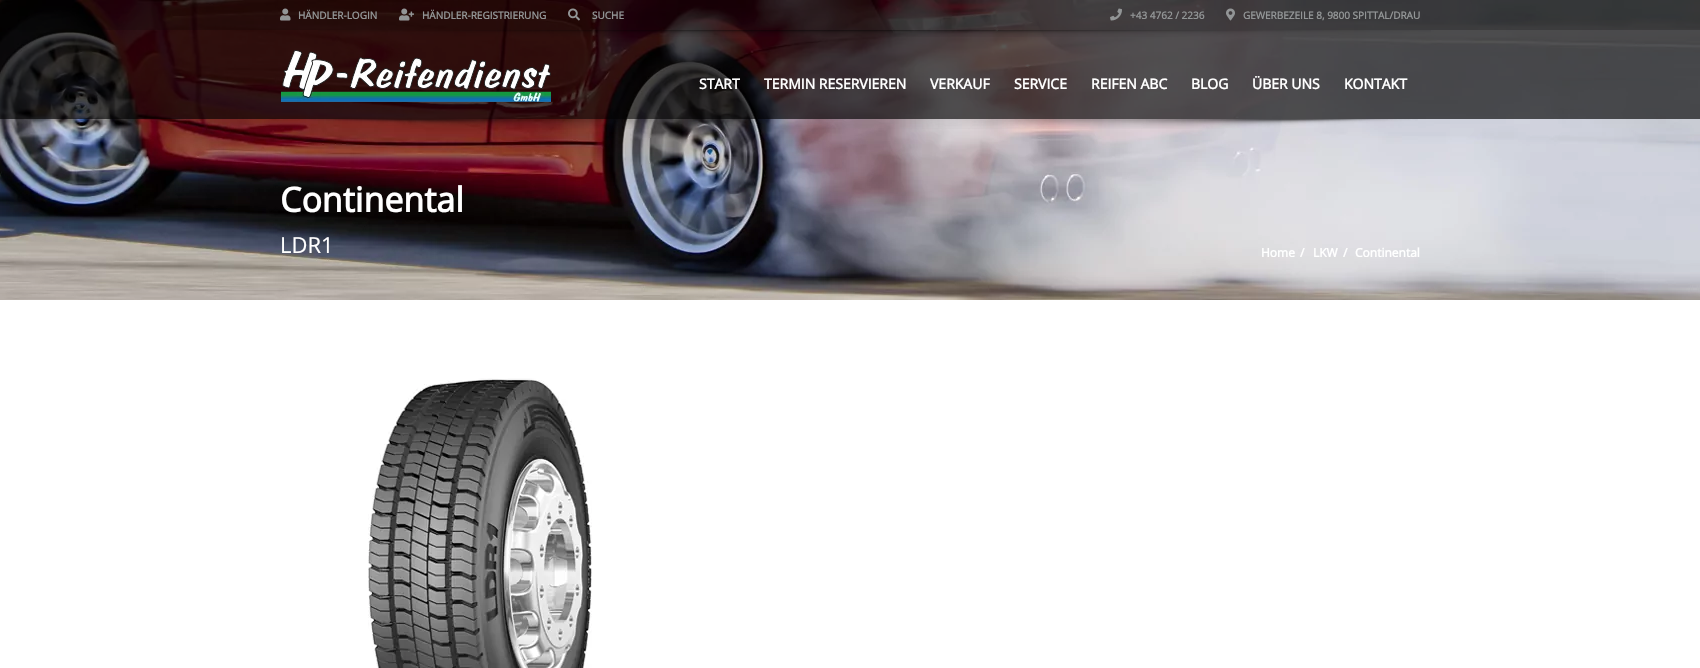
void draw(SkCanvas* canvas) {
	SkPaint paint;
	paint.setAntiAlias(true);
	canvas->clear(0xffffffff);
	canvas->drawImageRect(SkImages::DeferredFromEncodedData(SkData::MakeFromFileName("img9.png")), SkRect::MakeXYWH(0, 0, 1700, 300), SkSamplingOptions());
	paint.setColor(0xa6000000);
	canvas->drawRect(SkRect::MakeXYWH(0, 0, 1700, 119), paint);
	paint.setColor(0x33000000);
	canvas->drawRect(SkRect::MakeXYWH(0, 0, 1700, 30), paint);
	canvas->drawImageRect(SkImages::DeferredFromEncodedData(SkData::MakeFromFileName("img1.png")), SkRect::MakeXYWH(280, 8, 11, 13), SkSamplingOptions());
	SkFont f1(fontMgr->matchFamilyStyle("Open Sans", SkFontStyle::Bold()), 10);
	f1.setSubpixel(true);
	paint.setColor(0xff929596);
	canvas->drawString("HÄNDLER-LOGIN", 298, 19, f1, paint);
	canvas->drawImageRect(SkImages::DeferredFromEncodedData(SkData::MakeFromFileName("img2.png")), SkRect::MakeXYWH(399, 8, 15, 13), SkSamplingOptions());
	canvas->drawString("HÄNDLER-REGISTRIERUNG", 422, 19, f1, paint);
	canvas->drawImageRect(SkImages::DeferredFromEncodedData(SkData::MakeFromFileName("img3.png")), SkRect::MakeXYWH(568, 8, 12, 13), SkSamplingOptions());
	canvas->drawString("SUCHE", 592, 19, f1, paint);
	canvas->drawImageRect(SkImages::DeferredFromEncodedData(SkData::MakeFromFileName("img4.png")), SkRect::MakeXYWH(1110, 8, 12, 13), SkSamplingOptions());
	canvas->drawString("+43 4762 / 2236", 1130, 19, f1, paint);
	canvas->drawImageRect(SkImages::DeferredFromEncodedData(SkData::MakeFromFileName("img5.png")), SkRect::MakeXYWH(1226, 8, 9, 13), SkSamplingOptions());
	canvas->drawString("GEWERBEZEILE 8, 9800 SPITTAL/DRAU", 1243, 19, f1, paint);
	canvas->drawImageRect(SkImages::DeferredFromEncodedData(SkData::MakeFromFileName("img6.png")), SkRect::MakeXYWH(318, 30, 1113, 7), SkSamplingOptions());
	canvas->drawImageRect(SkImages::DeferredFromEncodedData(SkData::MakeFromFileName("img7.png")), SkRect::MakeXYWH(281, 50, 270, 52), SkSamplingOptions());
	SkFont f2(fontMgr->matchFamilyStyle("Open Sans", SkFontStyle::Bold()), 14);
	f2.setSubpixel(true);
	paint.setColor(0xffffffff);
	canvas->drawString("START", 699, 89, f2, paint);
	canvas->drawString("TERMIN RESERVIEREN", 764, 89, f2, paint);
	canvas->drawString("VERKAUF", 930, 89, f2, paint);
	canvas->drawString("SERVICE", 1014, 89, f2, paint);
	canvas->drawString("REIFEN ABC", 1091, 89, f2, paint);
	canvas->drawString("BLOG", 1191, 89, f2, paint);
	canvas->drawString("ÜBER UNS", 1252, 89, f2, paint);
	canvas->drawString("KONTAKT", 1344, 89, f2, paint);
	canvas->drawImageRect(SkImages::DeferredFromEncodedData(SkData::MakeFromFileName("img8.png")), SkRect::MakeXYWH(283, 119, 1135, 10), SkSamplingOptions());
	SkFont f3(fontMgr->matchFamilyStyle("Open Sans", SkFontStyle::Bold()), 34);
	f3.setSubpixel(true);
	canvas->drawString("Continental", 280, 212, f3, paint);
	SkFont f4(fontMgr->matchFamilyStyle("Open Sans", SkFontStyle::Normal()), 22);
	f4.setSubpixel(true);
	canvas->drawString("LDR1", 280, 253, f4, paint);
	SkFont f5(fontMgr->matchFamilyStyle("Open Sans", SkFontStyle::Bold()), 12);
	f5.setSubpixel(true);
	canvas->drawString("Home", 1261, 257, f5, paint);
	canvas->drawString("/", 1300, 257, f5, paint);
	canvas->drawString("LKW", 1313, 257, f5, paint);
	canvas->drawString("/", 1343, 257, f5, paint);
	canvas->drawString("Continental", 1355, 257, f5, paint);
	canvas->drawImageRect(SkImages::DeferredFromEncodedData(SkData::MakeFromFileName("img10.png")), SkRect::MakeXYWH(368, 378, 224, 290), SkSamplingOptions());
}
